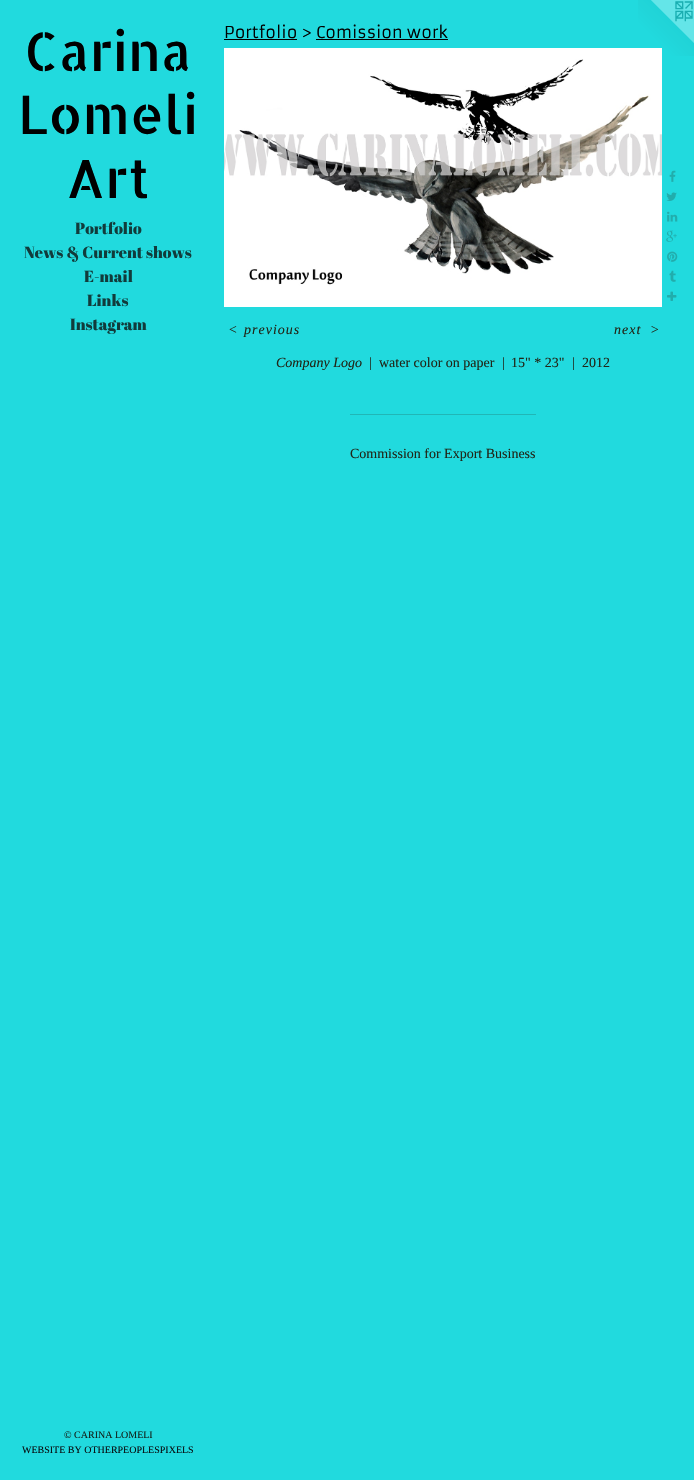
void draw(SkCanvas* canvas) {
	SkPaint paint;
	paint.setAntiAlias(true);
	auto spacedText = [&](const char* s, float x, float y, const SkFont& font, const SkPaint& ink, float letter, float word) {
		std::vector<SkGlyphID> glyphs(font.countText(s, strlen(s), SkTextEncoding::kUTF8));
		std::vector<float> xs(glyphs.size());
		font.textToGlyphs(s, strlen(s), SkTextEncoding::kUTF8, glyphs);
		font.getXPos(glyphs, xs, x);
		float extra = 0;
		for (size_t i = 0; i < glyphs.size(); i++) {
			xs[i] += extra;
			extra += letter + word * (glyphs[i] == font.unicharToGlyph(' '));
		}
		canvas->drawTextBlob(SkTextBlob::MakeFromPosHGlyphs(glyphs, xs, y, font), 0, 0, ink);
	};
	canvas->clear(0xff21dade);
	SkFont f1(fontMgr->matchFamilyStyle("Allerta Stencil", SkFontStyle::Normal()), 53);
	f1.setSubpixel(true);
	paint.setColor(0xff000000);
	canvas->drawString("Carina", 24, 71, f1, paint);
	canvas->drawString("Lomeli", 18, 134, f1, paint);
	canvas->drawString("Art", 66, 198, f1, paint);
	SkFont f2(fontMgr->matchFamilyStyle("Abril Fatface", SkFontStyle::Normal()), 16);
	f2.setSubpixel(true);
	paint.setColor(0xff113b3b);
	canvas->drawString("Portfolio", 75, 234, f2, paint);
	canvas->drawString("News & Current shows", 24, 258, f2, paint);
	canvas->drawString("E-mail", 84, 282, f2, paint);
	canvas->drawString("Links", 87, 306, f2, paint);
	canvas->drawString("Instagram", 70, 330, f2, paint);
	SkFont f3(fontMgr->matchFamilyStyle("Liberation Serif", SkFontStyle::Normal()), 10);
	f3.setSubpixel(true);
	paint.setColor(0xff10231c);
	canvas->drawString("© CARINA LOMELI", 64, 1438, f3, paint);
	paint.setColor(0xff070f13);
	canvas->drawString("WEBSITE BY OTHERPEOPLESPIXELS", 22, 1453, f3, paint);
	SkFont f4(fontMgr->matchFamilyStyle("Armata", SkFontStyle::Normal()), 16);
	f4.setSubpixel(true);
	paint.setColor(0xff000000);
	canvas->drawString("Portfolio > Comission work", 224, 38, f4, paint);
	canvas->drawRect(SkRect::MakeXYWH(224, 39, 73, 1), paint);
	canvas->drawRect(SkRect::MakeXYWH(316, 39, 132, 1), paint);
	canvas->drawImageRect(SkImages::DeferredFromEncodedData(SkData::MakeFromFileName("img9.png")), SkRect::MakeXYWH(638, 0, 56, 56), SkSamplingOptions());
	canvas->drawImageRect(SkImages::DeferredFromEncodedData(SkData::MakeFromFileName("img1.png")), SkRect::MakeXYWH(224, 48, 438, 259), SkSamplingOptions());
	canvas->drawImageRect(SkImages::DeferredFromEncodedData(SkData::MakeFromFileName("img2.png")), SkRect::MakeXYWH(669, 170, 7, 12), SkSamplingOptions());
	canvas->drawImageRect(SkImages::DeferredFromEncodedData(SkData::MakeFromFileName("img3.png")), SkRect::MakeXYWH(666, 192, 11, 9), SkSamplingOptions());
	canvas->drawImageRect(SkImages::DeferredFromEncodedData(SkData::MakeFromFileName("img4.png")), SkRect::MakeXYWH(667, 211, 11, 11), SkSamplingOptions());
	canvas->drawImageRect(SkImages::DeferredFromEncodedData(SkData::MakeFromFileName("img5.png")), SkRect::MakeXYWH(666, 230, 11, 12), SkSamplingOptions());
	canvas->drawImageRect(SkImages::DeferredFromEncodedData(SkData::MakeFromFileName("img6.png")), SkRect::MakeXYWH(667, 251, 11, 11), SkSamplingOptions());
	canvas->drawImageRect(SkImages::DeferredFromEncodedData(SkData::MakeFromFileName("img7.png")), SkRect::MakeXYWH(669, 270, 7, 12), SkSamplingOptions());
	canvas->drawImageRect(SkImages::DeferredFromEncodedData(SkData::MakeFromFileName("img8.png")), SkRect::MakeXYWH(667, 291, 10, 10), SkSamplingOptions());
	SkFont f5(fontMgr->matchFamilyStyle("Liberation Serif", SkFontStyle::Italic()), 14);
	f5.setSubpixel(true);
	paint.setColor(0xff212618);
	spacedText("<", 228, 334, f5, paint, 1, 0);
	spacedText("previous", 244, 334, f5, paint, 1, 0);
	spacedText("next", 614, 334, f5, paint, 1, 0);
	spacedText(">", 650, 334, f5, paint, 1, 0);
	canvas->drawString("Company Logo", 276, 367, f5, paint);
	SkFont f6(fontMgr->matchFamilyStyle("Liberation Serif", SkFontStyle::Normal()), 14);
	f6.setSubpixel(true);
	canvas->drawString("|", 369, 367, f6, paint);
	canvas->drawString("water color on paper", 379, 367, f6, paint);
	canvas->drawString("|", 502, 367, f6, paint);
	canvas->drawString("15\" * 23\"", 511, 367, f6, paint);
	canvas->drawString("|", 572, 367, f6, paint);
	canvas->drawString("2012", 582, 367, f6, paint);
	paint.setColor(0xff21b6b6);
	canvas->drawRect(SkRect::MakeXYWH(350, 414, 186, 1), paint);
	paint.setColor(0xff212618);
	canvas->drawString("Commission for Export Business", 350, 458, f6, paint);
}
